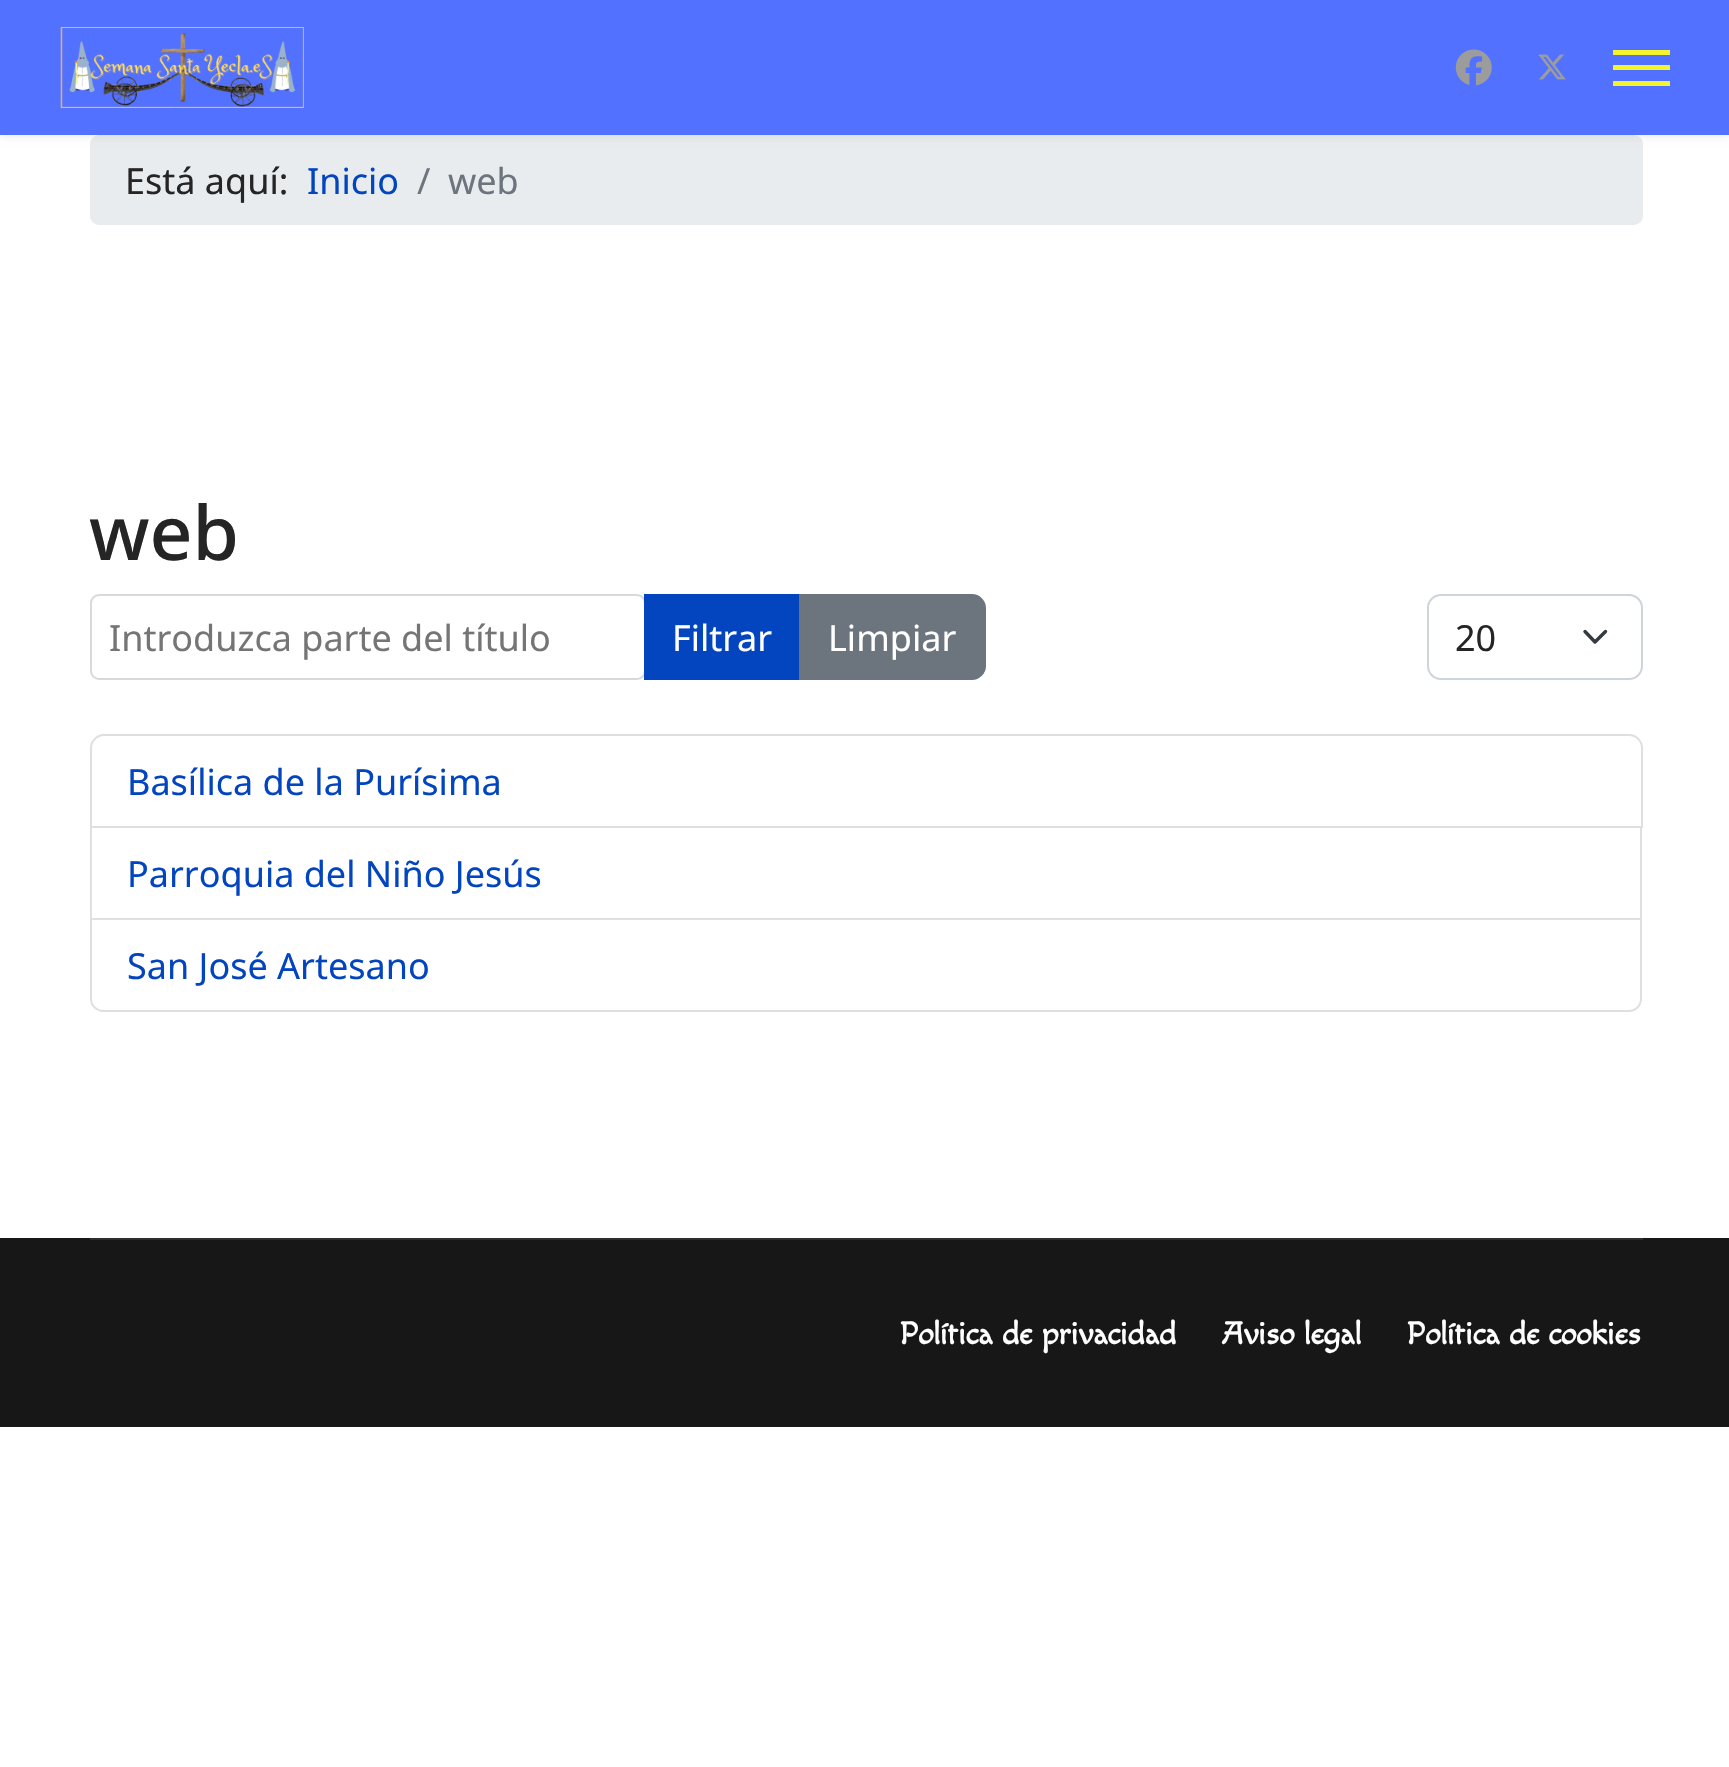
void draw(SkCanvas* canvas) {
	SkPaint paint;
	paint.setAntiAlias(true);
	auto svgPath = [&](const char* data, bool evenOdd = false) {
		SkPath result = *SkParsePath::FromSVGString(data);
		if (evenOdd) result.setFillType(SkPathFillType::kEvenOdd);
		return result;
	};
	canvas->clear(0xffffffff);
	paint.setColor(0xffe9ecef);
	canvas->drawRoundRect(SkRect::MakeXYWH(90, 135, 1553, 90), 9, 9, paint);
	paint.setColor(0x1a000000);
	paint.setMaskFilter(SkMaskFilter::MakeBlur(kNormal_SkBlurStyle, 4.5));
	canvas->drawRect(SkRect::MakeXYWH(0, 0, 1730, 135), paint);
	paint.setMaskFilter(nullptr);
	paint.setColor(0xff5271ff);
	canvas->drawRect(SkRect::MakeXYWH(0, 0, 1729, 135), paint);
	canvas->drawImageRect(SkImages::DeferredFromEncodedData(SkData::MakeFromFileName("img1.png")), SkRect::MakeXYWH(60, 27, 244, 81), SkSamplingOptions());
	canvas->drawImageRect(SkImages::DeferredFromEncodedData(SkData::MakeFromFileName("img2.png")), SkRect::MakeXYWH(1455, 49, 37, 37), SkSamplingOptions());
	canvas->drawImageRect(SkImages::DeferredFromEncodedData(SkData::MakeFromFileName("img3.png")), SkRect::MakeXYWH(1538, 54, 28, 26), SkSamplingOptions());
	paint.setColor(0xfff5f22e);
	canvas->drawRect(SkRect::MakeXYWH(1613, 50, 57, 5), paint);
	canvas->drawRect(SkRect::MakeXYWH(1613, 65, 57, 5), paint);
	canvas->drawRect(SkRect::MakeXYWH(1613, 81, 57, 5), paint);
	SkFont f1(fontMgr->matchFamilyStyle("Noto Sans", SkFontStyle::Normal()), 36);
	f1.setSubpixel(true);
	paint.setColor(0xff252525);
	canvas->drawString("Está aquí:", 125, 194, f1, paint);
	paint.setColor(0xff0345bf);
	canvas->drawString("Inicio", 307, 194, f1, paint);
	paint.setColor(0xff6c757d);
	canvas->drawString("/", 417, 194, f1, paint);
	canvas->drawString("web", 448, 194, f1, paint);
	SkFont f2(fontMgr->matchFamilyStyle("Noto Sans", SkFontStyle(500, SkFontStyle::kNormal_Width, SkFontStyle::kUpright_Slant)), 75);
	f2.setSubpixel(true);
	paint.setColor(0xff252525);
	canvas->drawString("web", 89, 560, f2, paint);
	paint.setStroke(true);
	paint.setStrokeWidth(2);
	paint.setColor(0xffd9d9d9);
	canvas->drawRoundRect(SkRect::MakeXYWH(91, 595, 554, 84), 8, 8, paint);
	paint.setStroke(false);
	paint.setColor(0xff757575);
	canvas->drawString("Introduzca parte del título", 109, 651, f1, paint);
	paint.setColor(0xff0345bf);
	canvas->drawRect(SkRect::MakeXYWH(644, 594, 155, 86), paint);
	paint.setColor(0xffffffff);
	canvas->drawString("Filtrar", 672, 651, f1, paint);
	paint.setColor(0xff6c757d);
	canvas->drawPath(svgPath("M800 595H972C979 595 985 601 985 608V666C985 673 979 679 972 679H800Z"), paint);
	paint.setStroke(true);
	canvas->drawPath(svgPath("M800 595H972C979 595 985 601 985 608V666C985 673 979 679 972 679H800Z"), paint);
	paint.setStroke(false);
	paint.setColor(0xffffffff);
	canvas->drawString("Limpiar", 828, 651, f1, paint);
	paint.setStroke(true);
	paint.setStrokeWidth(3.4);
	paint.setStrokeCap(SkPaint::kRound_Cap);
	paint.setStrokeJoin(SkPaint::kRound_Join);
	paint.setColor(0xff343a40);
	canvas->drawPath(svgPath("M1585 631.5L1595 642L1605.5 631.5"), paint);
	paint.setStrokeWidth(2);
	paint.setStrokeCap(SkPaint::kButt_Cap);
	paint.setStrokeJoin(SkPaint::kMiter_Join);
	paint.setColor(0xffced4da);
	canvas->drawRoundRect(SkRect::MakeXYWH(1428, 595, 214, 84), 13, 13, paint);
	paint.setStroke(false);
	paint.setColor(0xff252525);
	canvas->drawString("20", 1455, 651, f1, paint);
	paint.setStroke(true);
	paint.setColor(0xffdfdfdf);
	canvas->drawPath(svgPath("M104 735H1629C1636 735 1642 741 1642 748V827H91V748C91 741 97 735 104 735Z"), paint);
	paint.setStroke(false);
	paint.setColor(0xff0345bf);
	canvas->drawString("Basílica de la Purísima", 127, 795, f1, paint);
	paint.setColor(0xffdfdfdf);
	canvas->drawPath(svgPath("M1642 828V920L1640 918V828Z"), paint);
	paint.setColor(0x1f000000);
	canvas->drawPath(svgPath("M1642 920H90L92 918H1640Z"), paint);
	canvas->drawPath(svgPath("M90 920V828H92V918Z"), paint);
	paint.setColor(0xff0345bf);
	canvas->drawString("Parroquia del Niño Jesús", 127, 887, f1, paint);
	paint.setColor(0xffdfdfdf);
	canvas->drawPath(svgPath("M90 920H1642V999C1642 1006 1636 1012 1629 1012H104C96 1012 90 1006 90 999ZM92 920H1640V999C1640 1005 1635 1010 1629 1010H104C97 1010 92 1005 92 999Z", true), paint);
	paint.setColor(0xff0345bf);
	canvas->drawString("San José Artesano", 127, 979, f1, paint);
	paint.setColor(0xff171717);
	canvas->drawRect(SkRect::MakeXYWH(0, 1238, 1729, 189), paint);
	paint.setColor(0xff2e2e2e);
	canvas->drawRect(SkRect::MakeXYWH(90, 1238, 1553, 2), paint);
	SkFont f3(fontMgr->matchFamilyStyle("Macondo", SkFontStyle::Bold()), 31.5);
	f3.setSubpixel(true);
	paint.setColor(0xffffffff);
	canvas->drawString("Política de privacidad", 899, 1344, f3, paint);
	canvas->drawString("Aviso legal", 1222, 1344, f3, paint);
	canvas->drawString("Política de cookies", 1406, 1344, f3, paint);
}
